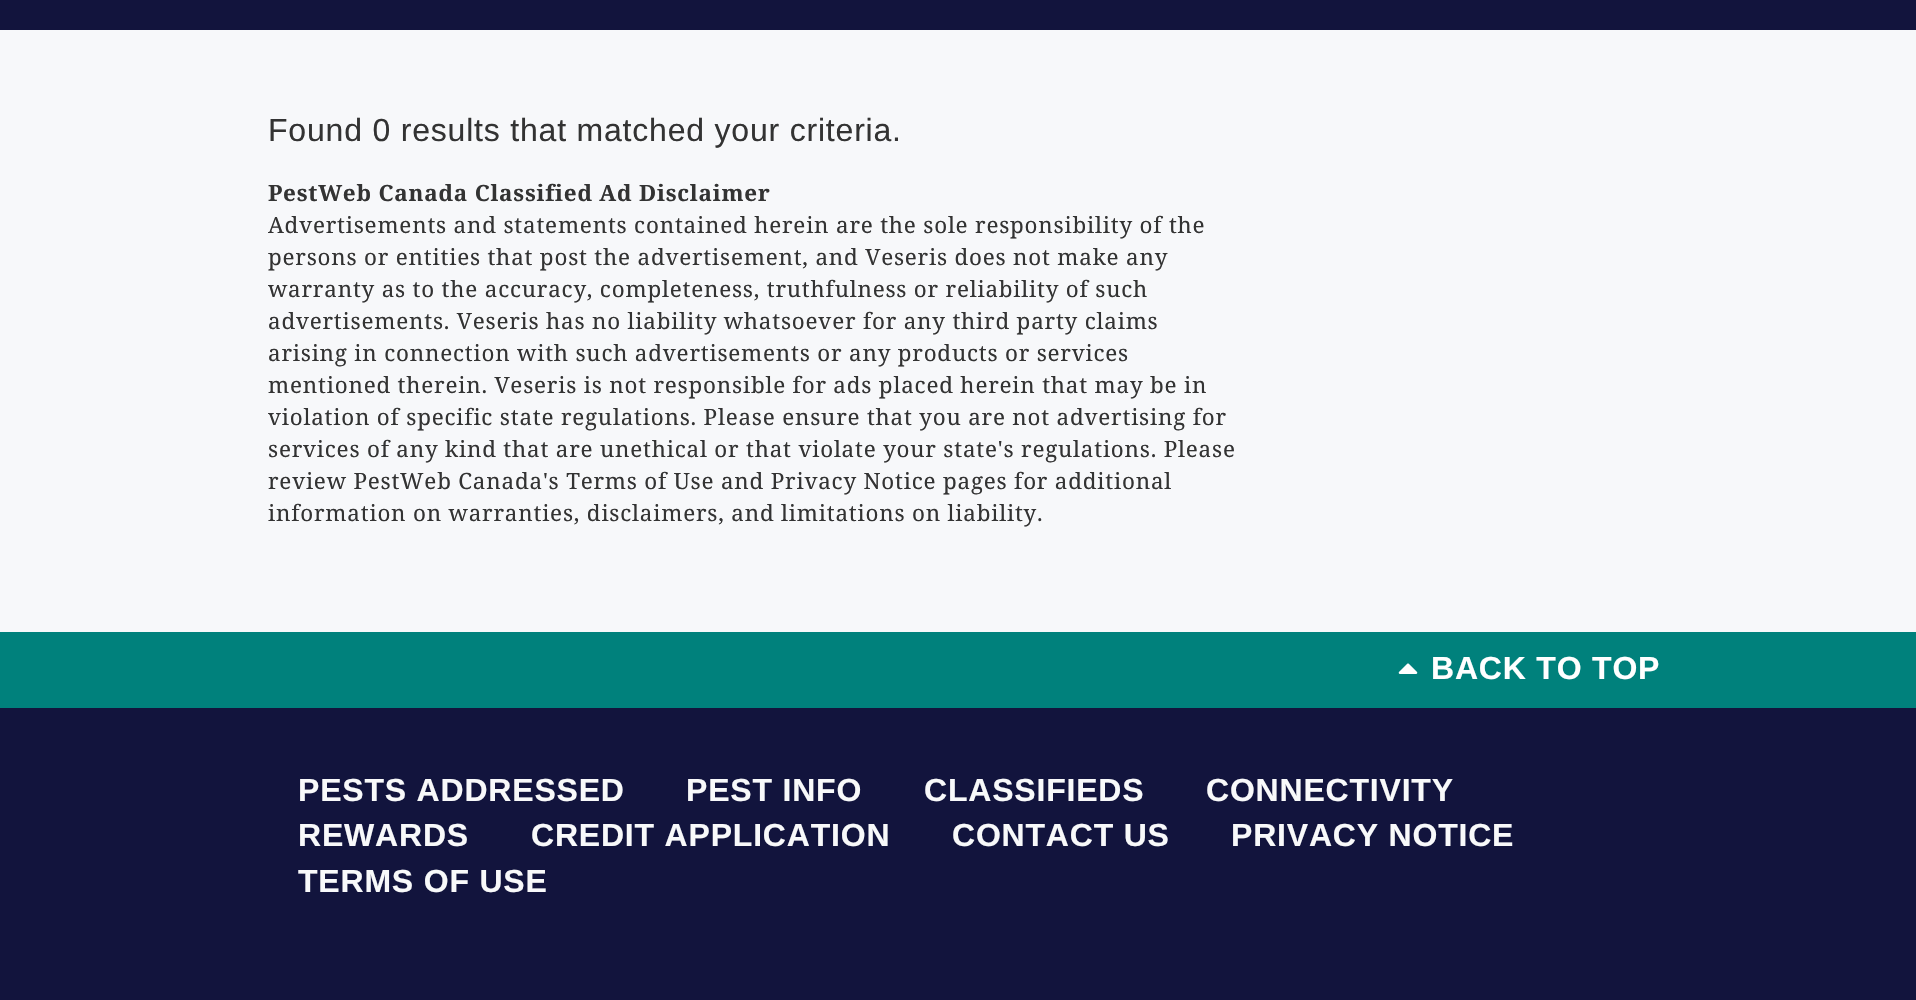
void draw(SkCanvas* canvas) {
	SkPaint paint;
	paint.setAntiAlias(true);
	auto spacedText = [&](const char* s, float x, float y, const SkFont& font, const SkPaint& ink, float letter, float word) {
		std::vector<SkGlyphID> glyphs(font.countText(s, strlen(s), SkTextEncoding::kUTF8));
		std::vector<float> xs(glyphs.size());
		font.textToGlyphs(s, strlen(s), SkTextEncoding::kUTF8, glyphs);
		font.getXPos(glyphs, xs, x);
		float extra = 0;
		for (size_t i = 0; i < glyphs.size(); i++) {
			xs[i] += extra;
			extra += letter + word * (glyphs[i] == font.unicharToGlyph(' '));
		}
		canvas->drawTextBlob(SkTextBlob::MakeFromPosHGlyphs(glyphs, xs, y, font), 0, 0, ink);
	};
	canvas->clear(0xff12143d);
	paint.setColor(0xfff7f8fa);
	canvas->drawRect(SkRect::MakeXYWH(0, 30, 1916, 602), paint);
	SkFont f1(fontMgr->matchFamilyStyle("Liberation Sans", SkFontStyle::Normal()), 32);
	f1.setSubpixel(true);
	paint.setColor(0xff333333);
	spacedText("Found 0 results that matched your criteria.", 268, 141, f1, paint, 0.8, 0);
	SkFont f2(fontMgr->matchFamilyStyle("Noto Serif", SkFontStyle::Bold()), 22.4);
	f2.setSubpixel(true);
	spacedText("PestWeb Canada Classified Ad Disclaimer", 268, 201, f2, paint, 0.8, 0);
	SkFont f3(fontMgr->matchFamilyStyle("Noto Serif", SkFontStyle::Normal()), 22.4);
	f3.setSubpixel(true);
	spacedText("Advertisements and statements contained herein are the sole responsibility of the", 268, 233, f3, paint, 0.8, 0);
	spacedText("persons or entities that post the advertisement, and Veseris does not make any", 268, 265, f3, paint, 0.8, 0);
	spacedText("warranty as to the accuracy, completeness, truthfulness or reliability of such", 268, 297, f3, paint, 0.8, 0);
	spacedText("advertisements. Veseris has no liability whatsoever for any third party claims", 268, 329, f3, paint, 0.8, 0);
	spacedText("arising in connection with such advertisements or any products or services", 268, 361, f3, paint, 0.8, 0);
	spacedText("mentioned therein. Veseris is not responsible for ads placed herein that may be in", 268, 393, f3, paint, 0.8, 0);
	spacedText("violation of specific state regulations. Please ensure that you are not advertising for", 268, 425, f3, paint, 0.8, 0);
	spacedText("services of any kind that are unethical or that violate your state's regulations. Please", 268, 457, f3, paint, 0.8, 0);
	spacedText("review PestWeb Canada's Terms of Use and Privacy Notice pages for additional", 268, 489, f3, paint, 0.8, 0);
	spacedText("information on warranties, disclaimers, and limitations on liability.", 268, 521, f3, paint, 0.8, 0);
	paint.setColor(0xff00817c);
	canvas->drawRect(SkRect::MakeXYWH(0, 632, 1916, 76), paint);
	canvas->drawImageRect(SkImages::DeferredFromEncodedData(SkData::MakeFromFileName("img1.png")), SkRect::MakeXYWH(1398, 663, 20, 11), SkSamplingOptions());
	SkFont f4(fontMgr->matchFamilyStyle("Liberation Sans", SkFontStyle::Bold()), 32);
	f4.setSubpixel(true);
	paint.setColor(0xffffffff);
	spacedText("BACK TO TOP", 1431, 679, f4, paint, 0.8, 0);
	paint.setColor(0xfff8f9fa);
	spacedText("PESTS ADDRESSED", 298, 801, f4, paint, 0.8, 0);
	spacedText("PEST INFO", 686, 801, f4, paint, 0.8, 0);
	spacedText("CLASSIFIEDS", 924, 801, f4, paint, 0.8, 0);
	spacedText("CONNECTIVITY", 1206, 801, f4, paint, 0.8, 0);
	spacedText("REWARDS", 298, 846, f4, paint, 0.8, 0);
	spacedText("CREDIT APPLICATION", 531, 846, f4, paint, 0.8, 0);
	spacedText("CONTACT US", 952, 846, f4, paint, 0.8, 0);
	spacedText("PRIVACY NOTICE", 1231, 846, f4, paint, 0.8, 0);
	spacedText("TERMS OF USE", 298, 892, f4, paint, 0.8, 0);
}
